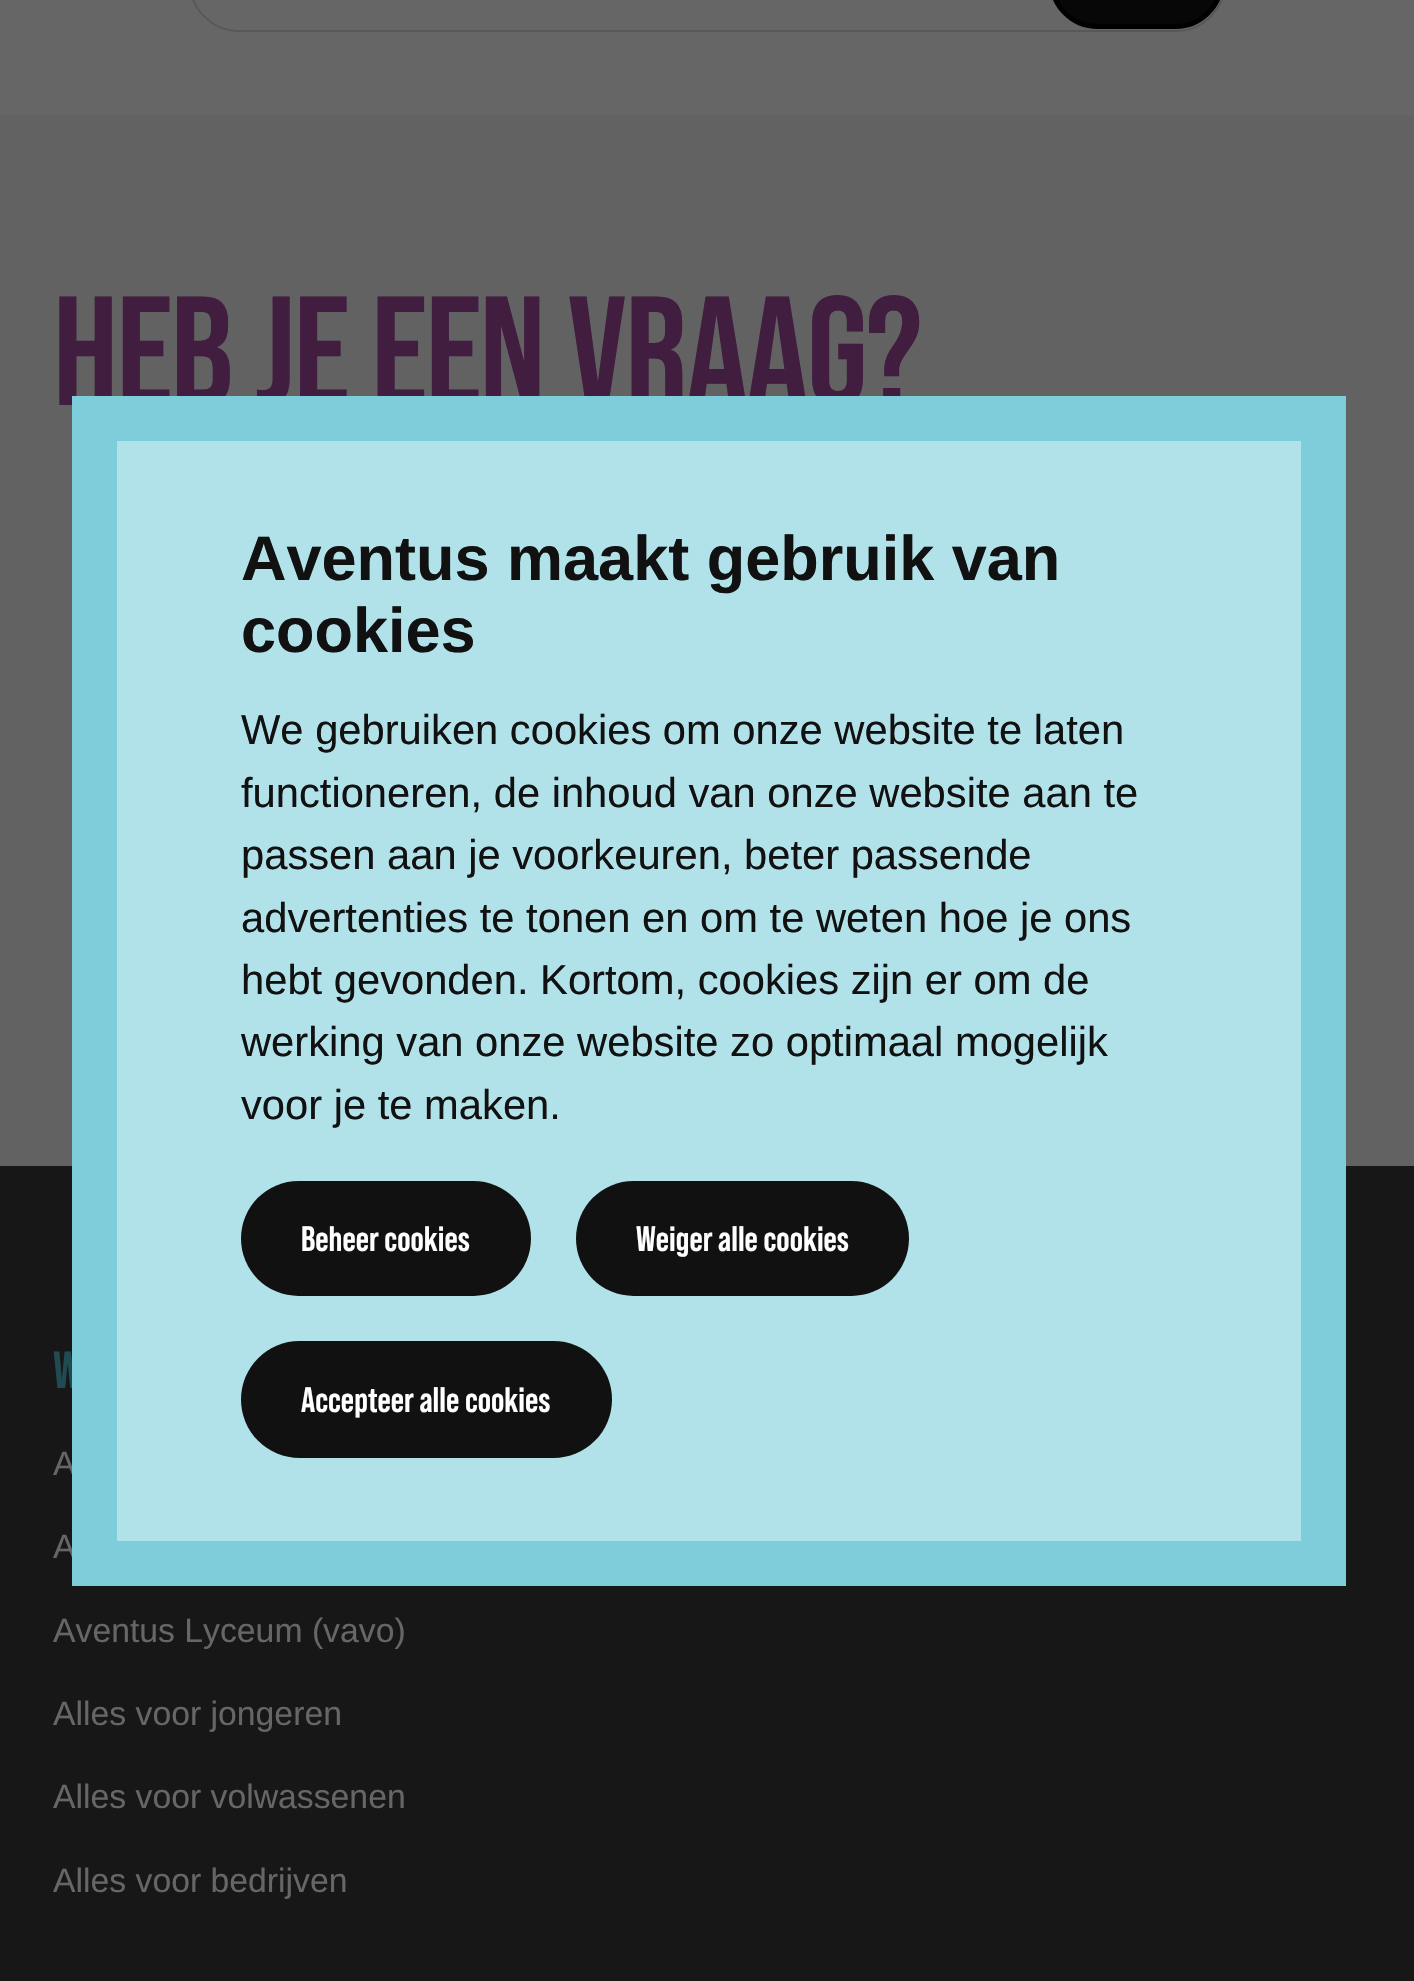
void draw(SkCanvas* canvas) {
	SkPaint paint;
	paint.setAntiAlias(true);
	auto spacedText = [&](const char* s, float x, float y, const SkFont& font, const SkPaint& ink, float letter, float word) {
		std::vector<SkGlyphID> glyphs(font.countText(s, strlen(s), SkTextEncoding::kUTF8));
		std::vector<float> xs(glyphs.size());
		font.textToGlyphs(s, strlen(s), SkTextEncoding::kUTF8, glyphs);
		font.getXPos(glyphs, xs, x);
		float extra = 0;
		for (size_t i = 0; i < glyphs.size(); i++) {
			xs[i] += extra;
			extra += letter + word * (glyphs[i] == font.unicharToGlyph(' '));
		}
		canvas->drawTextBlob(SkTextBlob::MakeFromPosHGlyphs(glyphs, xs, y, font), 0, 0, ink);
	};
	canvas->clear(0xff666666);
	paint.setStroke(true);
	paint.setStrokeWidth(2);
	paint.setColor(0xff585858);
	canvas->drawRoundRect(SkRect::MakeXYWH(190, -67, 1035, 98), 64.5, 64.5, paint);
	paint.setStroke(false);
	paint.setColor(0xff070707);
	canvas->drawRoundRect(SkRect::MakeXYWH(1051.5, -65.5, 170, 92), 60.5, 60.5, paint);
	paint.setStroke(true);
	paint.setStrokeWidth(5);
	paint.setColor(0xff000000);
	canvas->drawRoundRect(SkRect::MakeXYWH(1051.5, -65.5, 170, 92), 60.5, 60.5, paint);
	paint.setStroke(false);
	paint.setColor(0xff626262);
	canvas->drawRect(SkRect::MakeXYWH(0, 115, 1414, 1051), paint);
	SkFont f1(fontMgr->matchFamilyStyle("Bebas Neue", SkFontStyle::Bold()), 155);
	f1.setSubpixel(true);
	paint.setColor(0xff411d40);
	spacedText("HEB JE EEN VRAAG?", 53, 405, f1, paint, -1.5, 0);
	paint.setColor(0xff171717);
	canvas->drawRect(SkRect::MakeXYWH(0, 1166, 1414, 815), paint);
	SkFont f2(fontMgr->matchFamilyStyle("Bebas Neue", SkFontStyle::Bold()), 52);
	f2.setSubpixel(true);
	paint.setColor(0xff214b52);
	canvas->drawString("W", 53, 1388, f2, paint);
	SkFont f3(fontMgr->matchFamilyStyle("Liberation Sans", SkFontStyle::Normal()), 33.75);
	f3.setSubpixel(true);
	paint.setColor(0xff666666);
	canvas->drawString("A", 53, 1475, f3, paint);
	canvas->drawString("A", 53, 1558, f3, paint);
	canvas->drawString("Aventus Lyceum (vavo)", 53, 1642, f3, paint);
	canvas->drawString("Alles voor jongeren", 53, 1725, f3, paint);
	canvas->drawString("Alles voor volwassenen", 53, 1808, f3, paint);
	canvas->drawString("Alles voor bedrijven", 53, 1892, f3, paint);
	paint.setColor(0xff7dcdda);
	canvas->drawRect(SkRect::MakeXYWH(72, 396, 1274, 1190), paint);
	paint.setColor(0xffb1e1e9);
	canvas->drawRect(SkRect::MakeXYWH(117, 441, 1184, 1100), paint);
	SkFont f4(fontMgr->matchFamilyStyle("Liberation Sans", SkFontStyle::Bold()), 63);
	f4.setSubpixel(true);
	paint.setColor(0xff111111);
	canvas->drawString("Aventus maakt gebruik van", 241, 580, f4, paint);
	canvas->drawString("cookies", 241, 652, f4, paint);
	SkFont f5(fontMgr->matchFamilyStyle("Liberation Sans", SkFontStyle::Normal()), 41.7);
	f5.setSubpixel(true);
	canvas->drawString("We gebruiken cookies om onze website te laten", 241, 744, f5, paint);
	canvas->drawString("functioneren, de inhoud van onze website aan te", 241, 807, f5, paint);
	canvas->drawString("passen aan je voorkeuren, beter passende", 241, 869, f5, paint);
	canvas->drawString("advertenties te tonen en om te weten hoe je ons", 241, 932, f5, paint);
	canvas->drawString("hebt gevonden. Kortom, cookies zijn er om de", 241, 994, f5, paint);
	canvas->drawString("werking van onze website zo optimaal mogelijk", 241, 1056, f5, paint);
	canvas->drawString("voor je te maken.", 241, 1119, f5, paint);
	canvas->drawRoundRect(SkRect::MakeXYWH(241, 1181, 290, 115), 57.5, 57.5, paint);
	SkFont f6(fontMgr->matchFamilyStyle("Bebas Neue", SkFontStyle::Bold()), 35.5);
	f6.setSubpixel(true);
	paint.setColor(0xffffffff);
	canvas->drawString("Beheer cookies", 301, 1251, f6, paint);
	paint.setColor(0xff111111);
	canvas->drawRoundRect(SkRect::MakeXYWH(576, 1181, 333, 115), 57.5, 57.5, paint);
	paint.setColor(0xffffffff);
	canvas->drawString("Weiger alle cookies", 636, 1251, f6, paint);
	paint.setColor(0xff111111);
	canvas->drawRoundRect(SkRect::MakeXYWH(241, 1341, 371, 117), 58.5, 58.5, paint);
	paint.setColor(0xffffffff);
	canvas->drawString("Accepteer alle cookies", 301, 1412, f6, paint);
}
